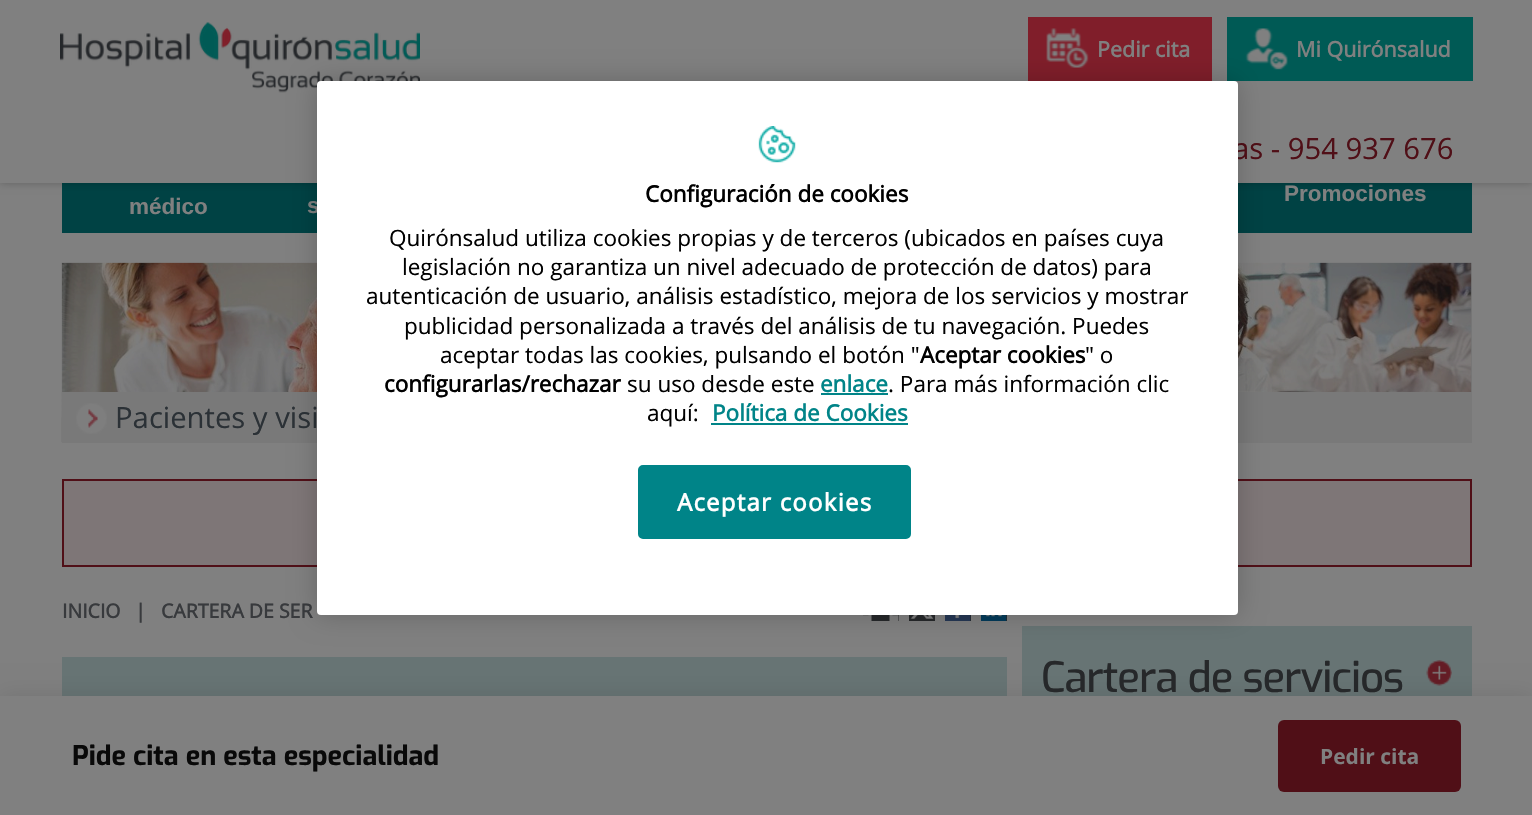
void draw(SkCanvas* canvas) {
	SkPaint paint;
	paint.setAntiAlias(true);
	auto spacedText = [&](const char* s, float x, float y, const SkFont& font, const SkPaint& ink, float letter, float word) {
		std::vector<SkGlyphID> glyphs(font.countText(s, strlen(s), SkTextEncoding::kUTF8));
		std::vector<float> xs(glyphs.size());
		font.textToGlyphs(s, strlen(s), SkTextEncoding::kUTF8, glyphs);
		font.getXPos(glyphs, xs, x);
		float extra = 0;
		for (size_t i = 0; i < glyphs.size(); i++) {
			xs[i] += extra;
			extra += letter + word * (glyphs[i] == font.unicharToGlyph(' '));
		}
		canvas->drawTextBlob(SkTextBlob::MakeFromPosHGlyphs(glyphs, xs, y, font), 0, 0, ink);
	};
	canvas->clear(0xff808080);
	paint.setColor(0xff004244);
	canvas->drawRect(SkRect::MakeXYWH(62, 183, 1410, 50), paint);
	paint.setColor(0x3d000000);
	paint.setMaskFilter(SkMaskFilter::MakeBlur(kNormal_SkBlurStyle, 4));
	canvas->drawRect(SkRect::MakeXYWH(0, 0, 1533, 183), paint);
	paint.setMaskFilter(nullptr);
	paint.setColor(0xff808080);
	canvas->drawRect(SkRect::MakeXYWH(0, 0, 1532, 183), paint);
	canvas->drawImageRect(SkImages::DeferredFromEncodedData(SkData::MakeFromFileName("img1.png")), SkRect::MakeXYWH(60, 22, 360, 71), SkSamplingOptions());
	paint.setColor(0xff801e2a);
	canvas->drawRect(SkRect::MakeXYWH(1028, 17, 184, 64), paint);
	canvas->drawImageRect(SkImages::DeferredFromEncodedData(SkData::MakeFromFileName("img2.png")), SkRect::MakeXYWH(1046, 28, 43, 40), SkSamplingOptions());
	SkFont f1(fontMgr->matchFamilyStyle("Open Sans", SkFontStyle::Bold()), 21.5);
	f1.setSubpixel(true);
	paint.setColor(0xff808080);
	canvas->drawString("Pedir cita", 1097, 57, f1, paint);
	paint.setColor(0xff005a55);
	canvas->drawRect(SkRect::MakeXYWH(1227, 17, 246, 64), paint);
	canvas->drawImageRect(SkImages::DeferredFromEncodedData(SkData::MakeFromFileName("img3.png")), SkRect::MakeXYWH(1245, 28, 43, 42), SkSamplingOptions());
	paint.setColor(0xff808080);
	canvas->drawString("Mi Quirónsalud", 1296, 57, f1, paint);
	SkFont f2(fontMgr->matchFamilyStyle("Open Sans", SkFontStyle::Normal()), 29.25);
	f2.setSubpixel(true);
	paint.setColor(0xff500f17);
	canvas->drawString("as - 954 937 676", 1233, 159, f2, paint);
	SkFont f3(fontMgr->matchFamilyStyle("Liberation Sans", SkFontStyle::Bold()), 22.5);
	f3.setSubpixel(true);
	paint.setColor(0xff808080);
	canvas->drawString("Promociones", 1284, 201, f3, paint);
	canvas->drawString("médico", 129, 214, f3, paint);
	canvas->drawString("s", 307, 213, f3, paint);
	canvas->drawImageRect(SkImages::DeferredFromEncodedData(SkData::MakeFromFileName("img4.png")), SkRect::MakeXYWH(61, 262, 256, 181), SkSamplingOptions());
	paint.setColor(0xff797979);
	canvas->drawRect(SkRect::MakeXYWH(62, 392, 255, 51), paint);
	canvas->drawImageRect(SkImages::DeferredFromEncodedData(SkData::MakeFromFileName("img5.png")), SkRect::MakeXYWH(76, 403, 31, 31), SkSamplingOptions());
	paint.setColor(0xff2b3136);
	canvas->drawString("Pacientes y visi", 115, 428, f2, paint);
	paint.setColor(0xff777777);
	canvas->drawRect(SkRect::MakeXYWH(1238, 263, 234, 129), paint);
	canvas->drawImageRect(SkImages::DeferredFromEncodedData(SkData::MakeFromFileName("img6.png")), SkRect::MakeXYWH(1238, 262, 234, 130), SkSamplingOptions());
	paint.setColor(0xff797979);
	canvas->drawRect(SkRect::MakeXYWH(1238, 392, 234, 51), paint);
	paint.setColor(0xff7e7677);
	canvas->drawRect(SkRect::MakeXYWH(63, 480, 1408, 86), paint);
	paint.setStroke(true);
	paint.setStrokeWidth(2);
	paint.setColor(0xff500f17);
	canvas->drawRect(SkRect::MakeXYWH(63, 480, 1408, 86), paint);
	SkFont f4(fontMgr->matchFamilyStyle("Open Sans", SkFontStyle::Bold()), 19.5);
	f4.setSubpixel(true);
	paint.setStroke(false);
	paint.setColor(0xff383a3d);
	canvas->drawString("INICIO", 62, 618, f4, paint);
	canvas->drawString("|", 135, 618, f4, paint);
	canvas->drawString("CARTERA DE SER", 161, 618, f4, paint);
	paint.setColor(0xff26282a);
	canvas->drawRect(SkRect::MakeXYWH(863, 615, 36, 6), paint);
	canvas->drawImageRect(SkImages::DeferredFromEncodedData(SkData::MakeFromFileName("img7.png")), SkRect::MakeXYWH(863, 615, 36, 6), SkSamplingOptions());
	canvas->drawRect(SkRect::MakeXYWH(909, 615, 26, 6), paint);
	canvas->drawImageRect(SkImages::DeferredFromEncodedData(SkData::MakeFromFileName("img8.png")), SkRect::MakeXYWH(910, 615, 24, 4), SkSamplingOptions());
	canvas->drawRect(SkRect::MakeXYWH(970, 615, 1, 6), paint);
	canvas->drawImageRect(SkImages::DeferredFromEncodedData(SkData::MakeFromFileName("img9.png")), SkRect::MakeXYWH(945, 615, 26, 6), SkSamplingOptions());
	canvas->drawRect(SkRect::MakeXYWH(1006, 615, 1, 6), paint);
	canvas->drawImageRect(SkImages::DeferredFromEncodedData(SkData::MakeFromFileName("img10.png")), SkRect::MakeXYWH(981, 615, 26, 6), SkSamplingOptions());
	paint.setColor(0xff677474);
	canvas->drawRect(SkRect::MakeXYWH(62, 657, 945, 39), paint);
	canvas->drawRect(SkRect::MakeXYWH(1022, 626, 450, 70), paint);
	canvas->drawImageRect(SkImages::DeferredFromEncodedData(SkData::MakeFromFileName("img11.png")), SkRect::MakeXYWH(1426, 660, 26, 26), SkSamplingOptions());
	paint.setColor(0x1a000000);
	paint.setMaskFilter(SkMaskFilter::MakeBlur(kNormal_SkBlurStyle, 11));
	canvas->drawRect(SkRect::MakeXYWH(0, 696, 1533, 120), paint);
	paint.setMaskFilter(nullptr);
	paint.setColor(0xff808080);
	canvas->drawRect(SkRect::MakeXYWH(0, 696, 1532, 119), paint);
	SkFont f5(fontMgr->matchFamilyStyle("Exo", SkFontStyle::Bold()), 27);
	f5.setSubpixel(true);
	paint.setColor(0xff090909);
	canvas->drawString("Pide cita en esta especialidad", 72, 765, f5, paint);
	paint.setColor(0xff500f17);
	canvas->drawRoundRect(SkRect::MakeXYWH(1278, 720, 183, 72), 6, 6, paint);
	SkFont f6(fontMgr->matchFamilyStyle("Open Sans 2", SkFontStyle::Bold()), 21);
	f6.setSubpixel(true);
	paint.setColor(0xff808080);
	canvas->drawString("Pedir cita", 1320, 764, f6, paint);
	SkFont f7(fontMgr->matchFamilyStyle("Exo", SkFontStyle(500, SkFontStyle::kNormal_Width, SkFontStyle::kUpright_Slant)), 42);
	f7.setSubpixel(true);
	paint.setColor(0xff26282a);
	spacedText("Cartera de servicios", 1041, 692, f7, paint, -1.05, 0);
	paint.setColor(0x33000000);
	paint.setMaskFilter(SkMaskFilter::MakeBlur(kNormal_SkBlurStyle, 13.5));
	canvas->drawRoundRect(SkRect::MakeXYWH(317, 81, 921, 534), 4, 4, paint);
	paint.setMaskFilter(nullptr);
	paint.setColor(0xffffffff);
	canvas->drawRoundRect(SkRect::MakeXYWH(317, 81, 921, 534), 4, 4, paint);
	canvas->drawImageRect(SkImages::DeferredFromEncodedData(SkData::MakeFromFileName("img12.png")), SkRect::MakeXYWH(758, 126, 38, 37), SkSamplingOptions());
	SkFont f8(fontMgr->matchFamilyStyle("Open Sans", SkFontStyle::Bold()), 22.5);
	f8.setSubpixel(true);
	paint.setColor(0xff000000);
	canvas->drawString("Configuración de cookies", 645, 202, f8, paint);
	SkFont f9(fontMgr->matchFamilyStyle("Open Sans", SkFontStyle::Normal()), 22.5);
	f9.setSubpixel(true);
	canvas->drawString("Quirónsalud utiliza cookies propias y de terceros (ubicados en países cuya", 389, 246, f9, paint);
	canvas->drawString("legislación no garantiza un nivel adecuado de protección de datos) para", 402, 275, f9, paint);
	canvas->drawString("autenticación de usuario, análisis estadístico, mejora de los servicios y mostrar", 366, 304, f9, paint);
	canvas->drawString("publicidad personalizada a través del análisis de tu navegación. Puedes", 404, 334, f9, paint);
	canvas->drawString("aceptar todas las cookies, pulsando el botón \"", 440, 363, f9, paint);
	canvas->drawString("Aceptar cookies", 920, 363, f8, paint);
	canvas->drawString("\" o", 1085, 363, f9, paint);
	canvas->drawString("configurarlas/rechazar", 384, 392, f8, paint);
	canvas->drawString("su uso desde este", 627, 392, f9, paint);
	paint.setColor(0xff008488);
	canvas->drawString("enlace", 820, 392, f8, paint);
	canvas->drawRect(SkRect::MakeXYWH(821, 393, 67, 2), paint);
	paint.setColor(0xff000000);
	canvas->drawString(". Para más información clic", 888, 392, f9, paint);
	canvas->drawString("aquí:", 647, 421, f9, paint);
	paint.setColor(0xff008488);
	canvas->drawString("Política de Cookies", 712, 421, f8, paint);
	canvas->drawRect(SkRect::MakeXYWH(711, 423, 197, 2), paint);
	canvas->drawRoundRect(SkRect::MakeXYWH(639, 466, 271, 72), 4, 4, paint);
	paint.setStroke(true);
	canvas->drawRoundRect(SkRect::MakeXYWH(639, 466, 271, 72), 4, 4, paint);
	SkFont f10(fontMgr->matchFamilyStyle("Open Sans", SkFontStyle::Bold()), 24);
	f10.setSubpixel(true);
	paint.setStroke(false);
	paint.setColor(0xffffffff);
	spacedText("Aceptar cookies", 677, 511, f10, paint, 1.25, 0);
}
